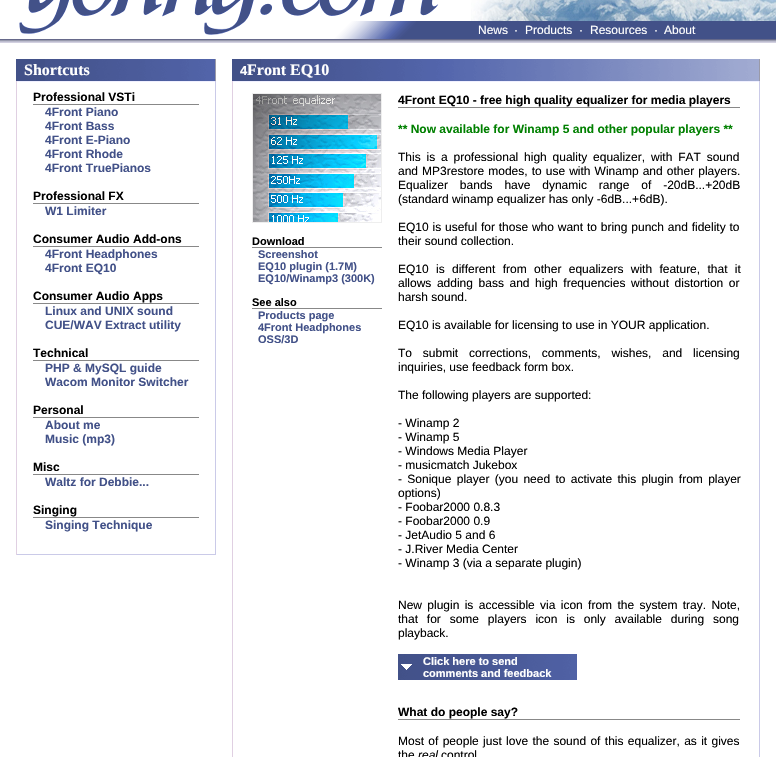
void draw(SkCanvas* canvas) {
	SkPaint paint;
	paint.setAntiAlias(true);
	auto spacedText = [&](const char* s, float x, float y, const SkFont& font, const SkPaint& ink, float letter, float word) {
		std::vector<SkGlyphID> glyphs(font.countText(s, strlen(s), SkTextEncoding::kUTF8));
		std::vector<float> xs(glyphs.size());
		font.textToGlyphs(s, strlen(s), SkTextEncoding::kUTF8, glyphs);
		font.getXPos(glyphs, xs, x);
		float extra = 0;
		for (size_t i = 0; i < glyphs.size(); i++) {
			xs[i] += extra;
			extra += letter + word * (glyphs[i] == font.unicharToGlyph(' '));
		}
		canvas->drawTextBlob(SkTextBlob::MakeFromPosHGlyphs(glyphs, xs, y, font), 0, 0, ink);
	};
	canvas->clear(0xffffffff);
	canvas->drawImageRect(SkImages::DeferredFromEncodedData(SkData::MakeFromFileName("img1.png")), SkRect::MakeXYWH(28, 0, 411, 21), SkSamplingOptions());
	canvas->drawImageRect(SkImages::DeferredFromEncodedData(SkData::MakeFromFileName("img2.png")), SkRect::MakeXYWH(471, 0, 305, 21), SkSamplingOptions());
	paint.setColor(0xff425188);
	canvas->drawRect(SkRect::MakeXYWH(416, 21, 360, 18), paint);
	canvas->drawImageRect(SkImages::DeferredFromEncodedData(SkData::MakeFromFileName("img3.png")), SkRect::MakeXYWH(19, 21, 397, 18), SkSamplingOptions());
	SkFont f1(fontMgr->matchFamilyStyle("Liberation Sans", SkFontStyle::Normal()), 12);
	f1.setSubpixel(true);
	paint.setColor(0xffffffff);
	canvas->drawString("News", 478, 34, f1, paint);
	canvas->drawString("·", 514, 34, f1, paint);
	canvas->drawString("Products", 525, 34, f1, paint);
	canvas->drawString("·", 579, 34, f1, paint);
	canvas->drawString("Resources", 590, 34, f1, paint);
	canvas->drawString("·", 654, 34, f1, paint);
	canvas->drawString("About", 664, 34, f1, paint);
	paint.setColor(0xff66698a);
	canvas->drawRect(SkRect::MakeXYWH(0, 39, 776, 1), paint);
	paint.setColor(0xff989aad);
	canvas->drawRect(SkRect::MakeXYWH(0, 40, 776, 1), paint);
	paint.setColor(0xffbcbcce);
	canvas->drawRect(SkRect::MakeXYWH(0, 41, 776, 1), paint);
	paint.setColor(0xffd2d0e0);
	canvas->drawRect(SkRect::MakeXYWH(0, 42, 776, 1), paint);
	paint.setColor(0xff425188);
	canvas->drawRect(SkRect::MakeXYWH(16, 59, 29, 22), paint);
	canvas->drawImageRect(SkImages::DeferredFromEncodedData(SkData::MakeFromFileName("img4.png")), SkRect::MakeXYWH(45, 59, 170, 22), SkSamplingOptions());
	paint.setColor(0xff9a9aa8);
	canvas->drawRect(SkRect::MakeXYWH(215, 59, 1, 22), paint);
	SkFont f2(fontMgr->matchFamilyStyle("Liberation Serif", SkFontStyle::Bold()), 16);
	f2.setSubpixel(true);
	paint.setColor(0xffffffff);
	canvas->drawString("Shortcuts", 24, 75, f2, paint);
	paint.setColor(0xfff0f0ff);
	canvas->drawRect(SkRect::MakeXYWH(16, 81, 200, 1), paint);
	paint.setColor(0xffcacae8);
	canvas->drawRect(SkRect::MakeXYWH(215, 81, 1, 474), paint);
	canvas->drawRect(SkRect::MakeXYWH(16, 554, 200, 1), paint);
	paint.setColor(0xffe0d0e2);
	canvas->drawRect(SkRect::MakeXYWH(16, 81, 1, 474), paint);
	SkFont f3(fontMgr->matchFamilyStyle("Liberation Sans", SkFontStyle::Bold()), 12);
	f3.setSubpixel(true);
	paint.setColor(0xff000000);
	canvas->drawString("Professional VSTi", 33, 101, f3, paint);
	paint.setColor(0xff888888);
	canvas->drawRect(SkRect::MakeXYWH(33, 104, 166, 1), paint);
	paint.setColor(0xff425188);
	canvas->drawString("4Front Piano", 45, 116, f3, paint);
	canvas->drawString("4Front Bass", 45, 130, f3, paint);
	canvas->drawString("4Front E-Piano", 45, 144, f3, paint);
	canvas->drawString("4Front Rhode", 45, 158, f3, paint);
	canvas->drawString("4Front TruePianos", 45, 172, f3, paint);
	paint.setColor(0xff000000);
	canvas->drawString("Professional FX", 33, 200, f3, paint);
	paint.setColor(0xff888888);
	canvas->drawRect(SkRect::MakeXYWH(33, 203, 166, 1), paint);
	paint.setColor(0xff425188);
	canvas->drawString("W1 Limiter", 45, 215, f3, paint);
	paint.setColor(0xff000000);
	canvas->drawString("Consumer Audio Add-ons", 33, 243, f3, paint);
	paint.setColor(0xff888888);
	canvas->drawRect(SkRect::MakeXYWH(33, 246, 166, 1), paint);
	paint.setColor(0xff425188);
	canvas->drawString("4Front Headphones", 45, 258, f3, paint);
	canvas->drawString("4Front EQ10", 45, 272, f3, paint);
	paint.setColor(0xff000000);
	canvas->drawString("Consumer Audio Apps", 33, 300, f3, paint);
	paint.setColor(0xff888888);
	canvas->drawRect(SkRect::MakeXYWH(33, 303, 166, 1), paint);
	paint.setColor(0xff425188);
	canvas->drawString("Linux and UNIX sound", 45, 315, f3, paint);
	canvas->drawString("CUE/WAV Extract utility", 45, 329, f3, paint);
	paint.setColor(0xff000000);
	canvas->drawString("Technical", 33, 357, f3, paint);
	paint.setColor(0xff888888);
	canvas->drawRect(SkRect::MakeXYWH(33, 360, 166, 1), paint);
	paint.setColor(0xff425188);
	canvas->drawString("PHP & MySQL guide", 45, 372, f3, paint);
	canvas->drawString("Wacom Monitor Switcher", 45, 386, f3, paint);
	paint.setColor(0xff000000);
	canvas->drawString("Personal", 33, 414, f3, paint);
	paint.setColor(0xff888888);
	canvas->drawRect(SkRect::MakeXYWH(33, 417, 166, 1), paint);
	paint.setColor(0xff425188);
	canvas->drawString("About me", 45, 429, f3, paint);
	canvas->drawString("Music (mp3)", 45, 443, f3, paint);
	paint.setColor(0xff000000);
	canvas->drawString("Misc", 33, 471, f3, paint);
	paint.setColor(0xff888888);
	canvas->drawRect(SkRect::MakeXYWH(33, 474, 166, 1), paint);
	paint.setColor(0xff425188);
	canvas->drawString("Waltz for Debbie...", 45, 486, f3, paint);
	paint.setColor(0xff000000);
	canvas->drawString("Singing", 33, 514, f3, paint);
	paint.setColor(0xff888888);
	canvas->drawRect(SkRect::MakeXYWH(33, 517, 166, 1), paint);
	paint.setColor(0xff425188);
	canvas->drawString("Singing Technique", 45, 529, f3, paint);
	canvas->drawRect(SkRect::MakeXYWH(232, 59, 29, 22), paint);
	canvas->drawImageRect(SkImages::DeferredFromEncodedData(SkData::MakeFromFileName("img5.png")), SkRect::MakeXYWH(261, 59, 498, 22), SkSamplingOptions());
	paint.setColor(0xff9a9aa8);
	canvas->drawRect(SkRect::MakeXYWH(759, 59, 1, 22), paint);
	SkFont f4(fontMgr->matchFamilyStyle("Liberation Sans", SkFontStyle::Bold()), 13);
	f4.setSubpixel(true);
	paint.setColor(0xffffffff);
	canvas->drawString("4", 240, 75, f4, paint);
	canvas->drawString("Front EQ10", 247, 75, f2, paint);
	paint.setColor(0xfff0f0ff);
	canvas->drawRect(SkRect::MakeXYWH(232, 81, 528, 1), paint);
	paint.setColor(0xffcacae8);
	canvas->drawRect(SkRect::MakeXYWH(759, 81, 1, 676), paint);
	paint.setColor(0xffe0d0e2);
	canvas->drawRect(SkRect::MakeXYWH(232, 81, 1, 676), paint);
	paint.setColor(0xffeeeeee);
	canvas->drawRect(SkRect::MakeXYWH(252, 93, 130, 130), paint);
	canvas->drawImageRect(SkImages::DeferredFromEncodedData(SkData::MakeFromFileName("img6.png")), SkRect::MakeXYWH(253, 94, 128, 128), SkSamplingOptions());
	SkFont f5(fontMgr->matchFamilyStyle("Liberation Sans", SkFontStyle::Bold()), 11);
	f5.setSubpixel(true);
	paint.setColor(0xff000000);
	canvas->drawString("Download", 252, 245, f5, paint);
	paint.setColor(0xff888888);
	canvas->drawRect(SkRect::MakeXYWH(252, 247, 130, 1), paint);
	paint.setColor(0xff425188);
	canvas->drawString("Screenshot", 258, 258, f5, paint);
	canvas->drawString("EQ10 plugin (1.7M)", 258, 270, f5, paint);
	canvas->drawString("EQ10/Winamp3 (300K)", 258, 282, f5, paint);
	paint.setColor(0xff000000);
	canvas->drawString("See also", 252, 306, f5, paint);
	paint.setColor(0xff888888);
	canvas->drawRect(SkRect::MakeXYWH(252, 308, 130, 1), paint);
	paint.setColor(0xff425188);
	canvas->drawString("Products page", 258, 319, f5, paint);
	canvas->drawString("4Front Headphones", 258, 331, f5, paint);
	canvas->drawString("OSS/3D", 258, 343, f5, paint);
	paint.setColor(0xff000000);
	canvas->drawString("4Front EQ10 - free high quality equalizer for media players", 398, 104, f3, paint);
	paint.setColor(0xff888888);
	canvas->drawRect(SkRect::MakeXYWH(398, 107, 342, 1), paint);
	paint.setColor(0xff008000);
	canvas->drawString("** Now available for Winamp 5 and other popular players **", 398, 133, f3, paint);
	paint.setColor(0xff000000);
	spacedText("This is a professional high quality equalizer, with FAT sound", 398, 161, f1, paint, 0, 2.5);
	spacedText("and MP3restore modes, to use with Winamp and other players.", 398, 175, f1, paint, 0, 0.75);
	spacedText("Equalizer bands have dynamic range of -20dB...+20dB", 398, 189, f1, paint, 0, 8.5);
	canvas->drawString("(standard winamp equalizer has only -6dB...+6dB).", 398, 203, f1, paint);
	spacedText("EQ10 is useful for those who want to bring punch and fidelity to", 398, 231, f1, paint, 0, 0.5);
	canvas->drawString("their sound collection.", 398, 245, f1, paint);
	spacedText("EQ10 is different from other equalizers with feature, that it", 398, 273, f1, paint, 0, 4);
	spacedText("allows adding bass and high frequencies without distortion or", 398, 287, f1, paint, 0, 2.25);
	canvas->drawString("harsh sound.", 398, 301, f1, paint);
	canvas->drawString("EQ10 is available for licensing to use in YOUR application.", 398, 329, f1, paint);
	spacedText("To submit corrections, comments, wishes, and licensing", 398, 357, f1, paint, 0, 7.5);
	canvas->drawString("inquiries, use feedback form box.", 398, 371, f1, paint);
	canvas->drawString("The following players are supported:", 398, 399, f1, paint);
	canvas->drawString("- Winamp 2", 398, 427, f1, paint);
	canvas->drawString("- Winamp 5", 398, 441, f1, paint);
	canvas->drawString("- Windows Media Player", 398, 455, f1, paint);
	canvas->drawString("- musicmatch Jukebox", 398, 469, f1, paint);
	spacedText("- Sonique player (you need to activate this plugin from player", 398, 483, f1, paint, 0, 2);
	canvas->drawString("options)", 398, 497, f1, paint);
	canvas->drawString("- Foobar2000 0.8.3", 398, 511, f1, paint);
	canvas->drawString("- Foobar2000 0.9", 398, 525, f1, paint);
	canvas->drawString("- JetAudio 5 and 6", 398, 539, f1, paint);
	canvas->drawString("- J.River Media Center", 398, 553, f1, paint);
	canvas->drawString("- Winamp 3 (via a separate plugin)", 398, 567, f1, paint);
	spacedText("New plugin is accessible via icon from the system tray. Note,", 398, 609, f1, paint, 0, 2);
	spacedText("that for some players icon is only available during song", 398, 623, f1, paint, 0, 5.5);
	canvas->drawString("playback.", 398, 637, f1, paint);
	canvas->drawImageRect(SkImages::DeferredFromEncodedData(SkData::MakeFromFileName("img7.png")), SkRect::MakeXYWH(398, 654, 179, 26), SkSamplingOptions());
	canvas->drawImageRect(SkImages::DeferredFromEncodedData(SkData::MakeFromFileName("img8.png")), SkRect::MakeXYWH(401, 664, 11, 6), SkSamplingOptions());
	paint.setColor(0xffffffff);
	canvas->drawString("Click here to send", 423, 665, f5, paint);
	canvas->drawString("comments and feedback", 423, 677, f5, paint);
	paint.setColor(0xff000000);
	canvas->drawString("What do people say?", 398, 716, f3, paint);
	paint.setColor(0xff888888);
	canvas->drawRect(SkRect::MakeXYWH(398, 719, 342, 1), paint);
	paint.setColor(0xff000000);
	spacedText("Most of people just love the sound of this equalizer, as it gives", 398, 745, f1, paint, 0, 1);
	canvas->drawString("the", 398, 759, f1, paint);
	SkFont f6(fontMgr->matchFamilyStyle("Liberation Sans", SkFontStyle::Italic()), 12);
	f6.setSubpixel(true);
	canvas->drawString("real", 418, 759, f6, paint);
	canvas->drawString("control", 441, 759, f1, paint);
}
